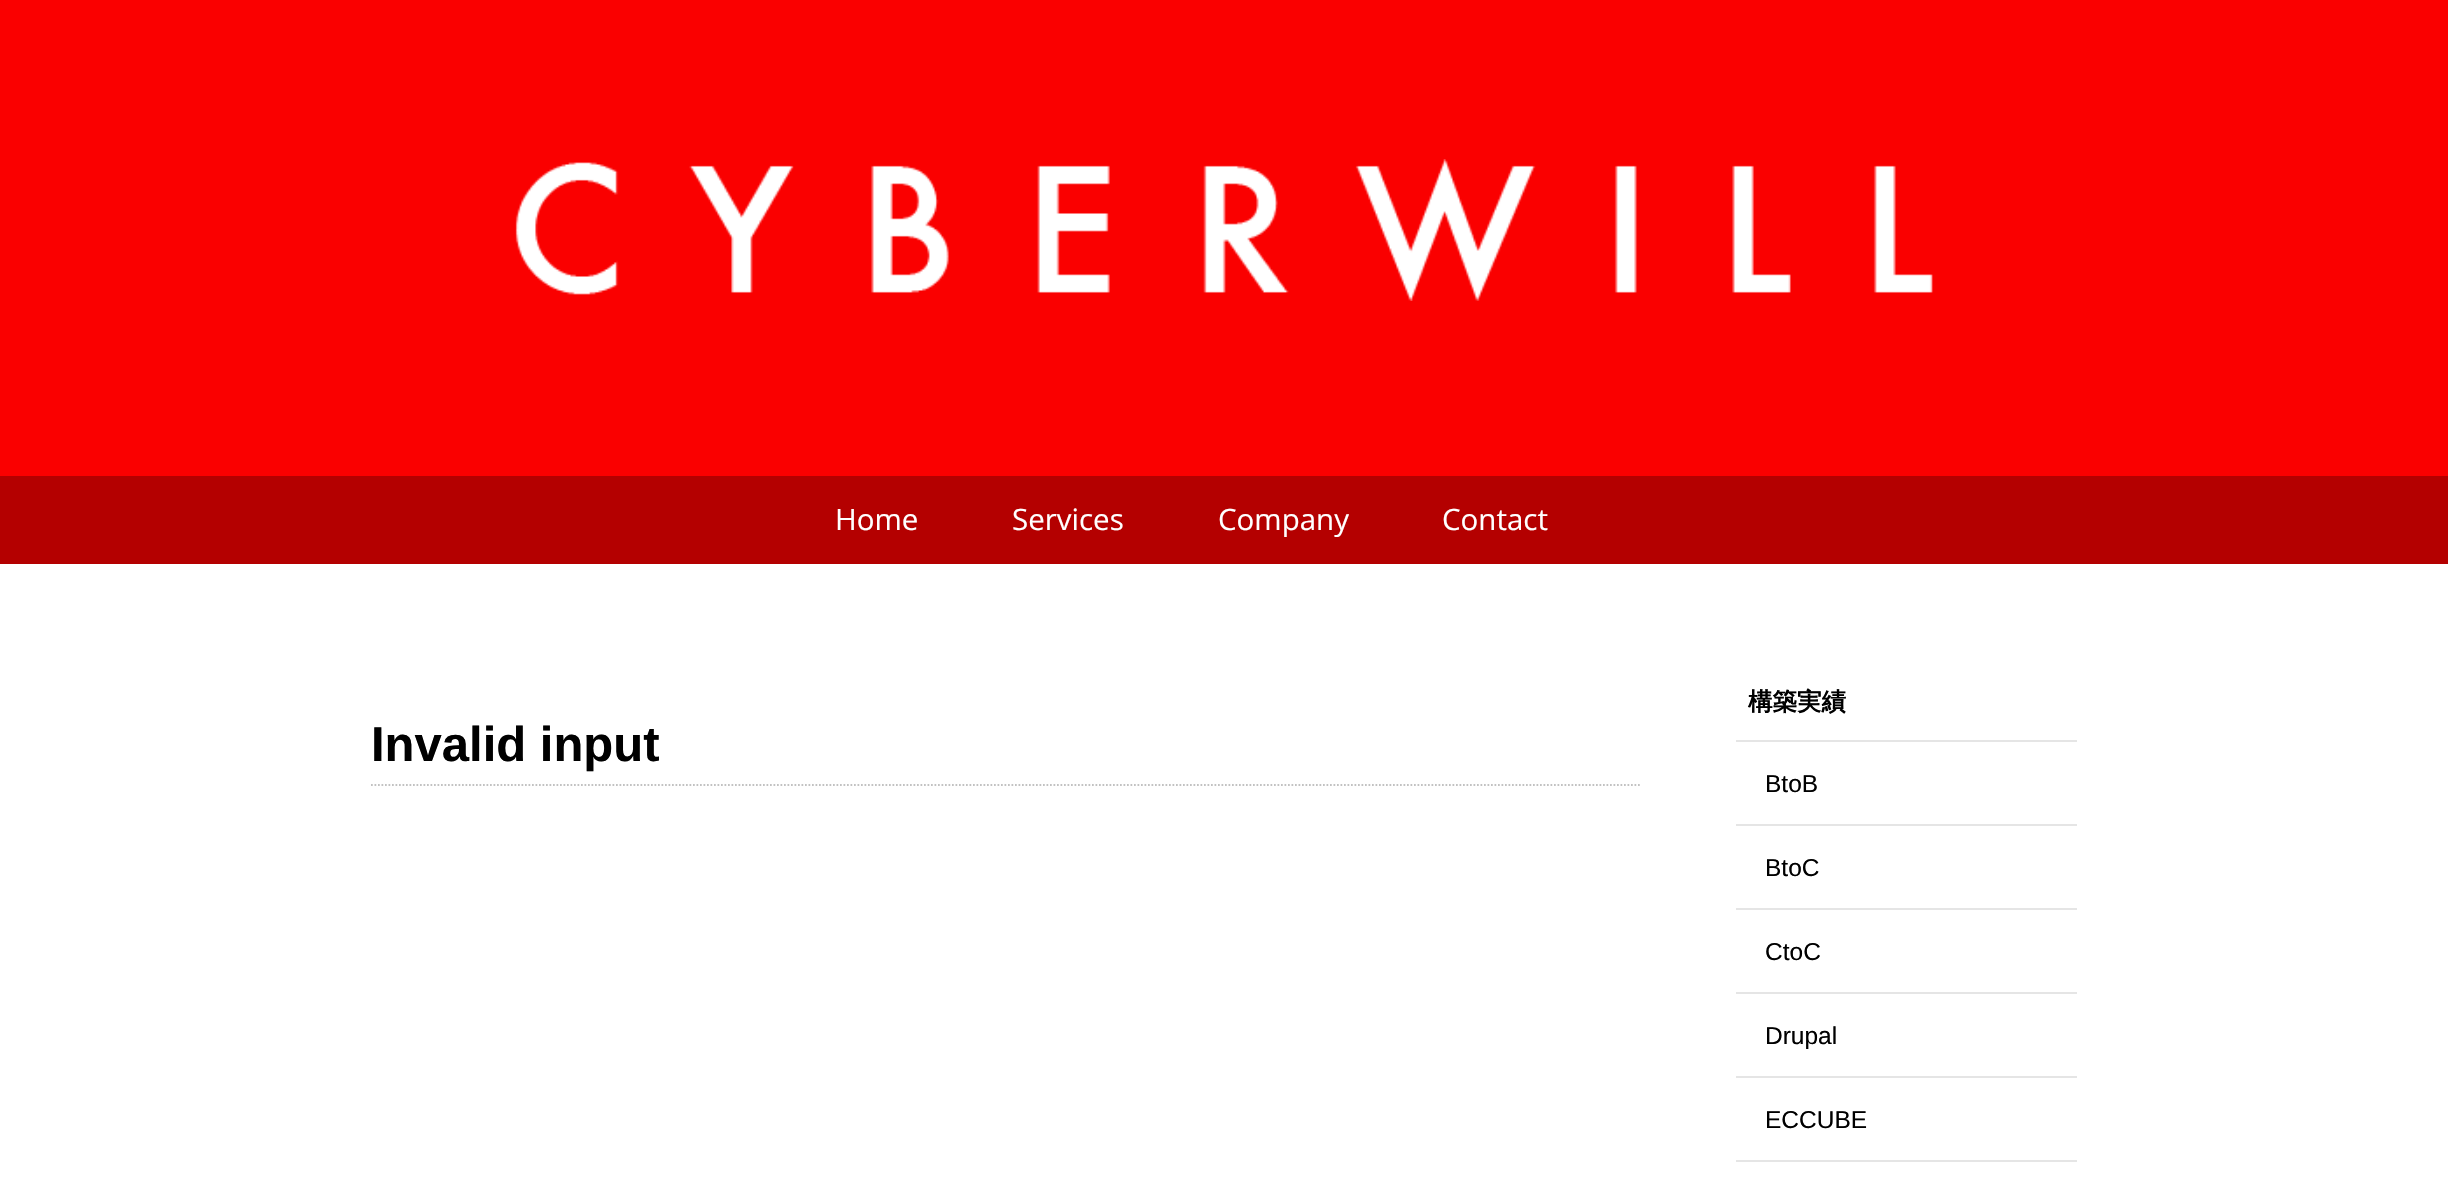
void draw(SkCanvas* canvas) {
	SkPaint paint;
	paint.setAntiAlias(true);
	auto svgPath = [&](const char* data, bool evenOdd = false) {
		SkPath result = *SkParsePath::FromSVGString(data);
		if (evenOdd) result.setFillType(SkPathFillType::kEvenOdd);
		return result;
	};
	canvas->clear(0xffffffff);
	paint.setColor(0xfffa0000);
	canvas->drawRect(SkRect::MakeXYWH(0, 0, 2448, 476), paint);
	canvas->drawImageRect(SkImages::DeferredFromEncodedData(SkData::MakeFromFileName("img1.png")), SkRect::MakeXYWH(515, 159, 1418, 142), SkSamplingOptions());
	paint.setColor(0xffb40000);
	canvas->drawRect(SkRect::MakeXYWH(0, 476, 2448, 88), paint);
	SkFont f1(fontMgr->matchFamilyStyle("Open Sans", SkFontStyle::Normal()), 29.5);
	f1.setSubpixel(true);
	paint.setColor(0xffffffff);
	canvas->drawString("Home", 835, 530, f1, paint);
	canvas->drawString("Services", 1012, 530, f1, paint);
	canvas->drawString("Company", 1218, 530, f1, paint);
	canvas->drawString("Contact", 1442, 530, f1, paint);
	paint.setStroke(true);
	paint.setStrokeWidth(1.8);
	paint.setColor(0xffc2c2c2);
	paint.setPathEffect(SkDashPathEffect::Make({{1.75f, 1.75f}}, 0));
	canvas->drawPath(svgPath("M371 785H1640"), paint);
	paint.setPathEffect(nullptr);
	SkFont f2(fontMgr->matchFamilyStyle("Liberation Sans", SkFontStyle::Bold()), 49);
	f2.setSubpixel(true);
	paint.setStroke(false);
	paint.setColor(0xff000000);
	canvas->drawString("Invalid input", 371, 761, f2, paint);
	paint.setColor(0xffe5e5e5);
	canvas->drawRect(SkRect::MakeXYWH(1736, 740, 341, 2), paint);
	SkFont f3(fontMgr->matchFamilyStyle("WenQuanYi Zen Hei", SkFontStyle::Bold()), 24.5);
	f3.setSubpixel(true);
	paint.setColor(0xff000000);
	canvas->drawString("構築実績", 1748, 710, f3, paint);
	paint.setColor(0xffe5e5e5);
	canvas->drawRect(SkRect::MakeXYWH(1736, 824, 341, 2), paint);
	SkFont f4(fontMgr->matchFamilyStyle("Liberation Sans", SkFontStyle::Normal()), 24.5);
	f4.setSubpixel(true);
	paint.setColor(0xff000000);
	canvas->drawString("BtoB", 1765, 792, f4, paint);
	paint.setColor(0xffe5e5e5);
	canvas->drawRect(SkRect::MakeXYWH(1736, 908, 341, 2), paint);
	paint.setColor(0xff000000);
	canvas->drawString("BtoC", 1765, 876, f4, paint);
	paint.setColor(0xffe5e5e5);
	canvas->drawRect(SkRect::MakeXYWH(1736, 992, 341, 2), paint);
	paint.setColor(0xff000000);
	canvas->drawString("CtoC", 1765, 960, f4, paint);
	paint.setColor(0xffe5e5e5);
	canvas->drawRect(SkRect::MakeXYWH(1736, 1076, 341, 2), paint);
	paint.setColor(0xff000000);
	canvas->drawString("Drupal", 1765, 1044, f4, paint);
	paint.setColor(0xffe5e5e5);
	canvas->drawRect(SkRect::MakeXYWH(1736, 1160, 341, 2), paint);
	paint.setColor(0xff000000);
	canvas->drawString("ECCUBE", 1765, 1128, f4, paint);
}
